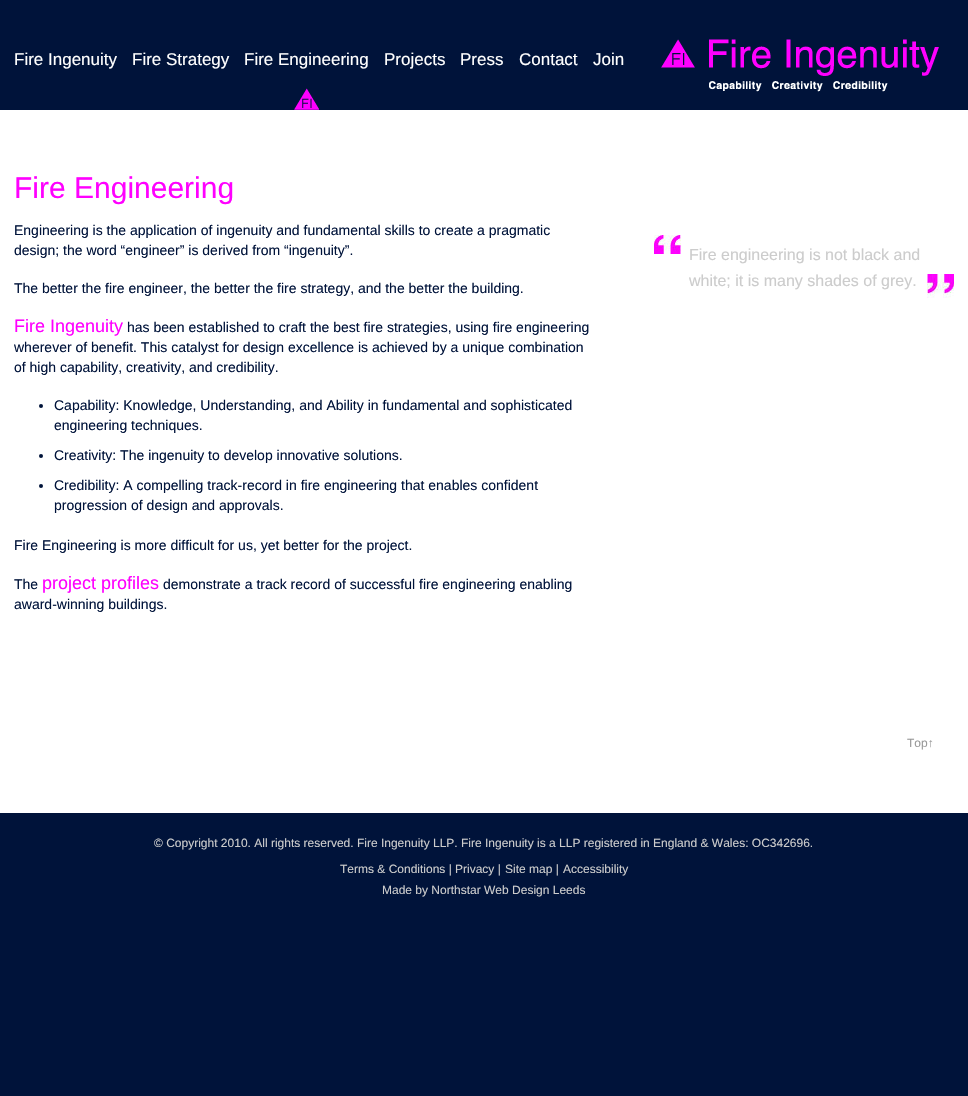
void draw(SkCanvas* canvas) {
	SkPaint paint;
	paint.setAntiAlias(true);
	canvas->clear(0xff00133a);
	SkFont f1(fontMgr->matchFamilyStyle("Liberation Sans", SkFontStyle::Normal()), 17);
	f1.setSubpixel(true);
	paint.setColor(0xffffffff);
	canvas->drawString("Fire Ingenuity", 14, 65, f1, paint);
	canvas->drawString("Fire Strategy", 132, 65, f1, paint);
	canvas->drawImageRect(SkImages::DeferredFromEncodedData(SkData::MakeFromFileName("img1.png")), SkRect::MakeXYWH(294, 88, 25, 22), SkSamplingOptions());
	canvas->drawString("Fire Engineering", 244, 65, f1, paint);
	canvas->drawString("Projects", 384, 65, f1, paint);
	canvas->drawString("Press", 460, 65, f1, paint);
	canvas->drawString("Contact", 519, 65, f1, paint);
	canvas->drawString("Join", 593, 65, f1, paint);
	canvas->drawImageRect(SkImages::DeferredFromEncodedData(SkData::MakeFromFileName("img2.png")), SkRect::MakeXYWH(661, 39, 278, 53), SkSamplingOptions());
	canvas->drawRect(SkRect::MakeXYWH(0, 110, 968, 703), paint);
	SkFont f2(fontMgr->matchFamilyStyle("Liberation Sans", SkFontStyle::Normal()), 30);
	f2.setSubpixel(true);
	paint.setColor(0xffff00ff);
	canvas->drawString("Fire Engineering", 14, 198, f2, paint);
	SkFont f3(fontMgr->matchFamilyStyle("Liberation Sans", SkFontStyle::Normal()), 14);
	f3.setSubpixel(true);
	paint.setColor(0xff00133a);
	canvas->drawString("Engineering is the application of ingenuity and fundamental skills to create a pragmatic", 14, 235, f3, paint);
	canvas->drawString("design; the word “engineer” is derived from “ingenuity”.", 14, 255, f3, paint);
	canvas->drawString("The better the fire engineer, the better the fire strategy, and the better the building.", 14, 293, f3, paint);
	SkFont f4(fontMgr->matchFamilyStyle("Liberation Sans", SkFontStyle::Normal()), 18);
	f4.setSubpixel(true);
	paint.setColor(0xffff00ff);
	canvas->drawString("Fire Ingenuity", 14, 332, f4, paint);
	paint.setColor(0xff00133a);
	canvas->drawString("has been established to craft the best fire strategies, using fire engineering", 127, 332, f3, paint);
	canvas->drawString("wherever of benefit. This catalyst for design excellence is achieved by a unique combination", 14, 352, f3, paint);
	canvas->drawString("of high capability, creativity, and credibility.", 14, 372, f3, paint);
	canvas->drawCircle(41, 406, 2, paint);
	canvas->drawString("Capability: Knowledge, Understanding, and Ability in fundamental and sophisticated", 54, 410, f3, paint);
	canvas->drawString("engineering techniques.", 54, 430, f3, paint);
	canvas->drawCircle(41, 456, 2, paint);
	canvas->drawString("Creativity: The ingenuity to develop innovative solutions.", 54, 460, f3, paint);
	canvas->drawCircle(41, 486, 2, paint);
	canvas->drawString("Credibility: A compelling track-record in fire engineering that enables confident", 54, 490, f3, paint);
	canvas->drawString("progression of design and approvals.", 54, 510, f3, paint);
	canvas->drawString("Fire Engineering is more difficult for us, yet better for the project.", 14, 550, f3, paint);
	canvas->drawString("The", 14, 589, f3, paint);
	paint.setColor(0xffff00ff);
	canvas->drawString("project profiles", 42, 589, f4, paint);
	paint.setColor(0xff00133a);
	canvas->drawString("demonstrate a track record of successful fire engineering enabling", 163, 589, f3, paint);
	canvas->drawString("award-winning buildings.", 14, 609, f3, paint);
	canvas->drawImageRect(SkImages::DeferredFromEncodedData(SkData::MakeFromFileName("img3.png")), SkRect::MakeXYWH(654, 235, 27, 19), SkSamplingOptions());
	canvas->drawImageRect(SkImages::DeferredFromEncodedData(SkData::MakeFromFileName("img4.png")), SkRect::MakeXYWH(927, 274, 27, 24), SkSamplingOptions());
	SkFont f5(fontMgr->matchFamilyStyle("Liberation Sans", SkFontStyle::Normal()), 16);
	f5.setSubpixel(true);
	paint.setColor(0xffcccccc);
	canvas->drawString("Fire engineering is not black and", 689, 260, f5, paint);
	canvas->drawString("white; it is many shades of grey.", 689, 286, f5, paint);
	SkFont f6(fontMgr->matchFamilyStyle("Liberation Sans", SkFontStyle::Normal()), 12);
	f6.setSubpixel(true);
	paint.setColor(0xff999999);
	canvas->drawString("Top↑", 907, 747, f6, paint);
	paint.setColor(0xffcccccc);
	canvas->drawString("© Copyright 2010. All rights reserved. Fire Ingenuity LLP. Fire Ingenuity is a LLP registered in England & Wales: OC342696.", 154, 847, f6, paint);
	canvas->drawString("Terms & Conditions |", 340, 873, f6, paint);
	canvas->drawString("Privacy |", 455, 873, f6, paint);
	canvas->drawString("Site map |", 505, 873, f6, paint);
	canvas->drawString("Accessibility", 563, 873, f6, paint);
	canvas->drawString("Made by Northstar Web Design Leeds", 382, 894, f6, paint);
}
